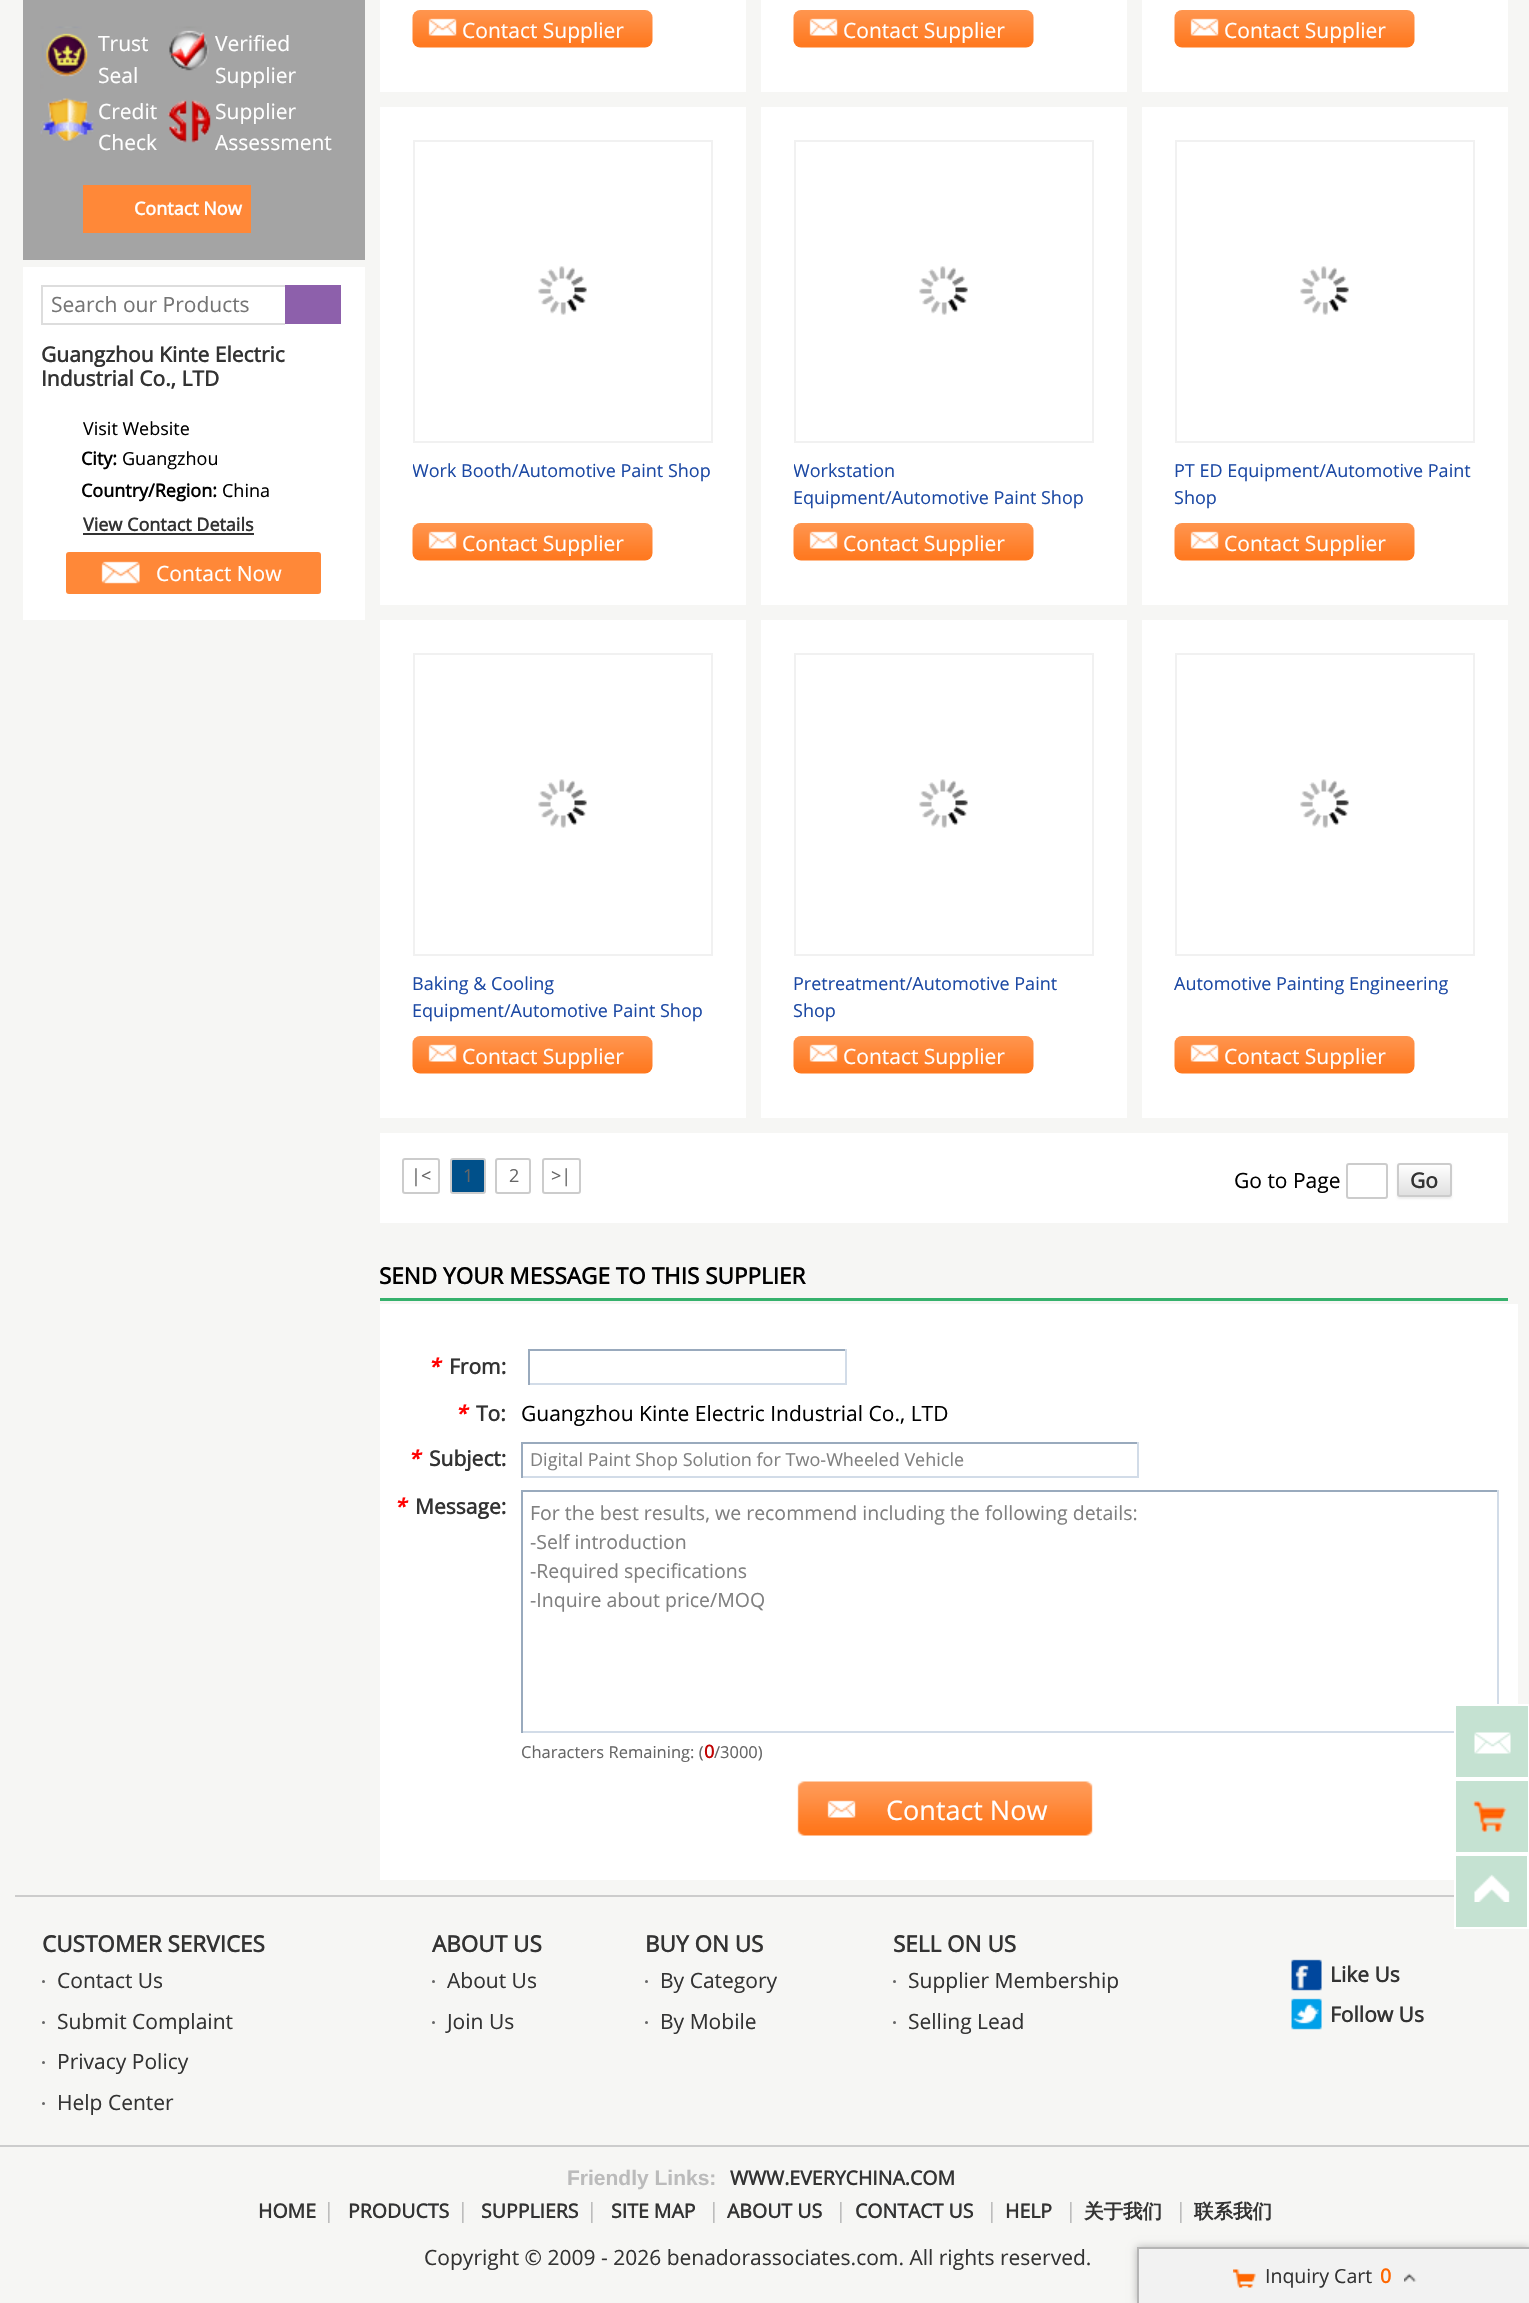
void draw(SkCanvas* canvas) {
	SkPaint paint;
	paint.setAntiAlias(true);
	auto svgPath = [&](const char* data, bool evenOdd = false) {
		SkPath result = *SkParsePath::FromSVGString(data);
		if (evenOdd) result.setFillType(SkPathFillType::kEvenOdd);
		return result;
	};
	canvas->clear(0xfff6f6f4);
	paint.setColor(0xffa4a4a4);
	canvas->drawRect(SkRect::MakeXYWH(23, 0, 342, 260), paint);
	canvas->drawImageRect(SkImages::DeferredFromEncodedData(SkData::MakeFromFileName("img1.png")), SkRect::MakeXYWH(40, 26, 171, 117), SkSamplingOptions());
	SkFont f1(fontMgr->matchFamilyStyle("Open Sans", SkFontStyle::Normal()), 21);
	f1.setSubpixel(true);
	paint.setColor(0xffffffff);
	canvas->drawString("Trust", 98, 51, f1, paint);
	canvas->drawString("Seal", 98, 83, f1, paint);
	canvas->drawString("Verified", 215, 51, f1, paint);
	canvas->drawString("Supplier", 215, 83, f1, paint);
	canvas->drawString("Credit", 98, 119, f1, paint);
	canvas->drawString("Check", 98, 150, f1, paint);
	canvas->drawString("Supplier", 215, 119, f1, paint);
	canvas->drawString("Assessment", 215, 150, f1, paint);
	paint.setColor(0xffff8838);
	canvas->drawRect(SkRect::MakeXYWH(83, 185, 168, 48), paint);
	SkFont f2(fontMgr->matchFamilyStyle("Open Sans", SkFontStyle::Bold()), 18);
	f2.setSubpixel(true);
	paint.setColor(0xffffffff);
	canvas->drawString("Contact Now", 134, 215, f2, paint);
	canvas->drawRect(SkRect::MakeXYWH(23, 267, 342, 353), paint);
	paint.setColor(0xffdddddd);
	canvas->drawRect(SkRect::MakeXYWH(41, 285, 244, 2), paint);
	canvas->drawRect(SkRect::MakeXYWH(41, 323, 244, 2), paint);
	canvas->drawRect(SkRect::MakeXYWH(41, 285, 2, 39), paint);
	paint.setColor(0xff757575);
	canvas->drawString("Search our Products", 51, 312, f1, paint);
	paint.setColor(0xff8d60ab);
	canvas->drawRect(SkRect::MakeXYWH(285, 285, 56, 39), paint);
	SkFont f3(fontMgr->matchFamilyStyle("Open Sans", SkFontStyle::Bold()), 21);
	f3.setSubpixel(true);
	paint.setColor(0xff333333);
	canvas->drawString("Guangzhou Kinte Electric", 41, 362, f3, paint);
	canvas->drawString("Industrial Co., LTD", 41, 386, f3, paint);
	SkFont f4(fontMgr->matchFamilyStyle("Open Sans", SkFontStyle::Normal()), 18);
	f4.setSubpixel(true);
	paint.setColor(0xff000000);
	canvas->drawString("Visit Website", 83, 435, f4, paint);
	canvas->drawString("City:", 81, 465, f2, paint);
	canvas->drawString("Guangzhou", 122, 465, f4, paint);
	canvas->drawString("Country/Region:", 81, 497, f2, paint);
	canvas->drawString("China", 222, 497, f4, paint);
	paint.setColor(0xff333333);
	canvas->drawString("View Contact Details", 83, 531, f2, paint);
	canvas->drawRect(SkRect::MakeXYWH(83, 533, 171, 2), paint);
	paint.setColor(0xffff8838);
	canvas->drawRoundRect(SkRect::MakeXYWH(66, 552, 255, 42), 3, 3, paint);
	canvas->drawImageRect(SkImages::DeferredFromEncodedData(SkData::MakeFromFileName("img2.png")), SkRect::MakeXYWH(101, 561, 39, 23), SkSamplingOptions());
	paint.setColor(0xffffffff);
	canvas->drawString("Contact Now", 156, 581, f1, paint);
	canvas->drawRect(SkRect::MakeXYWH(380, 0, 366, 92), paint);
	canvas->drawImageRect(SkImages::DeferredFromEncodedData(SkData::MakeFromFileName("img3.png")), SkRect::MakeXYWH(412, 10, 241, 38), SkSamplingOptions());
	canvas->drawString("Contact Supplier", 462, 38, f1, paint);
	canvas->drawRect(SkRect::MakeXYWH(761, 0, 366, 92), paint);
	canvas->drawImageRect(SkImages::DeferredFromEncodedData(SkData::MakeFromFileName("img4.png")), SkRect::MakeXYWH(793, 10, 241, 38), SkSamplingOptions());
	canvas->drawString("Contact Supplier", 843, 38, f1, paint);
	canvas->drawRect(SkRect::MakeXYWH(1142, 0, 366, 92), paint);
	canvas->drawImageRect(SkImages::DeferredFromEncodedData(SkData::MakeFromFileName("img3.png")), SkRect::MakeXYWH(1174, 10, 241, 38), SkSamplingOptions());
	canvas->drawString("Contact Supplier", 1224, 38, f1, paint);
	canvas->drawRect(SkRect::MakeXYWH(380, 107, 366, 498), paint);
	paint.setStroke(true);
	paint.setStrokeWidth(2);
	paint.setColor(0xfff1f1f1);
	canvas->drawRect(SkRect::MakeXYWH(414, 141, 298, 301), paint);
	canvas->drawImageRect(SkImages::DeferredFromEncodedData(SkData::MakeFromFileName("img5.png")), SkRect::MakeXYWH(538, 266, 49, 49), SkSamplingOptions());
	canvas->save();
	canvas->clipRect(SkRect::MakeXYWH(413, 458, 300, 27));
	paint.setStroke(false);
	paint.setColor(0xff1c49a4);
	canvas->drawString("Work Booth/Automotive Paint Shop", 412, 477, f4, paint);
	canvas->restore();
	canvas->drawImageRect(SkImages::DeferredFromEncodedData(SkData::MakeFromFileName("img6.png")), SkRect::MakeXYWH(412, 523, 241, 38), SkSamplingOptions());
	paint.setColor(0xffffffff);
	canvas->drawString("Contact Supplier", 462, 551, f1, paint);
	canvas->drawRect(SkRect::MakeXYWH(761, 107, 366, 498), paint);
	paint.setStroke(true);
	paint.setColor(0xfff1f1f1);
	canvas->drawRect(SkRect::MakeXYWH(795, 141, 298, 301), paint);
	canvas->drawImageRect(SkImages::DeferredFromEncodedData(SkData::MakeFromFileName("img7.png")), SkRect::MakeXYWH(919, 266, 49, 49), SkSamplingOptions());
	canvas->save();
	canvas->clipRect(SkRect::MakeXYWH(794, 458, 300, 51));
	paint.setStroke(false);
	paint.setColor(0xff1c49a4);
	canvas->drawString("Workstation", 793, 477, f4, paint);
	canvas->restore();
	canvas->drawString("Equipment/Automotive Paint Shop", 793, 504, f4, paint);
	canvas->drawImageRect(SkImages::DeferredFromEncodedData(SkData::MakeFromFileName("img8.png")), SkRect::MakeXYWH(793, 523, 241, 38), SkSamplingOptions());
	paint.setColor(0xffffffff);
	canvas->drawString("Contact Supplier", 843, 551, f1, paint);
	canvas->drawRect(SkRect::MakeXYWH(1142, 107, 366, 498), paint);
	paint.setStroke(true);
	paint.setColor(0xfff1f1f1);
	canvas->drawRect(SkRect::MakeXYWH(1176, 141, 298, 301), paint);
	canvas->drawImageRect(SkImages::DeferredFromEncodedData(SkData::MakeFromFileName("img5.png")), SkRect::MakeXYWH(1300, 266, 49, 49), SkSamplingOptions());
	paint.setStroke(false);
	paint.setColor(0xff1c49a4);
	canvas->drawString("PT ED Equipment/Automotive Paint", 1174, 477, f4, paint);
	canvas->drawString("Shop", 1174, 504, f4, paint);
	canvas->drawImageRect(SkImages::DeferredFromEncodedData(SkData::MakeFromFileName("img6.png")), SkRect::MakeXYWH(1174, 523, 241, 38), SkSamplingOptions());
	paint.setColor(0xffffffff);
	canvas->drawString("Contact Supplier", 1224, 551, f1, paint);
	canvas->drawRect(SkRect::MakeXYWH(380, 620, 366, 498), paint);
	paint.setStroke(true);
	paint.setColor(0xfff1f1f1);
	canvas->drawRect(SkRect::MakeXYWH(414, 654, 298, 301), paint);
	canvas->drawImageRect(SkImages::DeferredFromEncodedData(SkData::MakeFromFileName("img5.png")), SkRect::MakeXYWH(538, 779, 49, 49), SkSamplingOptions());
	paint.setStroke(false);
	paint.setColor(0xff1c49a4);
	canvas->drawString("Baking & Cooling", 412, 990, f4, paint);
	canvas->drawString("Equipment/Automotive Paint Shop", 412, 1017, f4, paint);
	canvas->drawImageRect(SkImages::DeferredFromEncodedData(SkData::MakeFromFileName("img6.png")), SkRect::MakeXYWH(412, 1036, 241, 38), SkSamplingOptions());
	paint.setColor(0xffffffff);
	canvas->drawString("Contact Supplier", 462, 1064, f1, paint);
	canvas->drawRect(SkRect::MakeXYWH(761, 620, 366, 498), paint);
	paint.setStroke(true);
	paint.setColor(0xfff1f1f1);
	canvas->drawRect(SkRect::MakeXYWH(795, 654, 298, 301), paint);
	canvas->drawImageRect(SkImages::DeferredFromEncodedData(SkData::MakeFromFileName("img7.png")), SkRect::MakeXYWH(919, 779, 49, 49), SkSamplingOptions());
	paint.setStroke(false);
	paint.setColor(0xff1c49a4);
	canvas->drawString("Pretreatment/Automotive Paint", 793, 990, f4, paint);
	canvas->drawString("Shop", 793, 1017, f4, paint);
	canvas->drawImageRect(SkImages::DeferredFromEncodedData(SkData::MakeFromFileName("img8.png")), SkRect::MakeXYWH(793, 1036, 241, 38), SkSamplingOptions());
	paint.setColor(0xffffffff);
	canvas->drawString("Contact Supplier", 843, 1064, f1, paint);
	canvas->drawRect(SkRect::MakeXYWH(1142, 620, 366, 498), paint);
	paint.setStroke(true);
	paint.setColor(0xfff1f1f1);
	canvas->drawRect(SkRect::MakeXYWH(1176, 654, 298, 301), paint);
	canvas->drawImageRect(SkImages::DeferredFromEncodedData(SkData::MakeFromFileName("img5.png")), SkRect::MakeXYWH(1300, 779, 49, 49), SkSamplingOptions());
	paint.setStroke(false);
	paint.setColor(0xff1c49a4);
	canvas->drawString("Automotive Painting Engineering", 1174, 990, f4, paint);
	canvas->drawImageRect(SkImages::DeferredFromEncodedData(SkData::MakeFromFileName("img6.png")), SkRect::MakeXYWH(1174, 1036, 241, 38), SkSamplingOptions());
	paint.setColor(0xffffffff);
	canvas->drawString("Contact Supplier", 1224, 1064, f1, paint);
	canvas->drawRect(SkRect::MakeXYWH(380, 1133, 1128, 90), paint);
	paint.setStroke(true);
	paint.setColor(0xffcccccc);
	canvas->drawRoundRect(SkRect::MakeXYWH(403, 1159, 36, 34), 2, 2, paint);
	paint.setStroke(false);
	paint.setColor(0xff666666);
	canvas->drawString("|<", 411, 1182, f4, paint);
	paint.setColor(0xff00508a);
	canvas->drawRoundRect(SkRect::MakeXYWH(451, 1159, 34, 34), 2, 2, paint);
	paint.setStroke(true);
	paint.setColor(0xffcccccc);
	canvas->drawRoundRect(SkRect::MakeXYWH(451, 1159, 34, 34), 2, 2, paint);
	paint.setStroke(false);
	paint.setColor(0xff666666);
	canvas->drawString("1", 463, 1182, f4, paint);
	paint.setStroke(true);
	paint.setColor(0xffcccccc);
	canvas->drawRoundRect(SkRect::MakeXYWH(496, 1159, 34, 34), 2, 2, paint);
	paint.setStroke(false);
	paint.setColor(0xff666666);
	canvas->drawString("2", 509, 1182, f4, paint);
	paint.setStroke(true);
	paint.setColor(0xffcccccc);
	canvas->drawRoundRect(SkRect::MakeXYWH(543, 1159, 37, 34), 2, 2, paint);
	paint.setStroke(false);
	paint.setColor(0xff666666);
	canvas->drawString(">|", 551, 1182, f4, paint);
	paint.setColor(0xff000000);
	canvas->drawString("Go to Page", 1234, 1188, f1, paint);
	paint.setStroke(true);
	paint.setColor(0xffcccccc);
	canvas->drawRoundRect(SkRect::MakeXYWH(1347, 1164, 40, 34), 2, 2, paint);
	paint.setStroke(false);
	paint.setColor(0x12000000);
	paint.setMaskFilter(SkMaskFilter::MakeBlur(kNormal_SkBlurStyle, 1));
	canvas->drawRoundRect(SkRect::MakeXYWH(1397, 1164, 55, 35), 3, 3, paint);
	paint.setMaskFilter(nullptr);
	canvas->save();
	canvas->clipPath(svgPath("M1400 1163H1449C1450.5 1163 1452 1164.5 1452 1166V1194C1452 1195.5 1450.5 1197 1449 1197H1400C1398.5 1197 1397 1195.5 1397 1194V1166C1397 1164.5 1398.5 1163 1400 1163Z"), true);
	{
		const SkColor colors[] = {0xffffffff, 0xffe0e0e0};
		const float stops[] = {0, 1};
		const SkPoint ends[] = {{1424, 1164}, {1424, 1196}};
		paint.setShader(SkGradientShader::MakeLinear(ends, colors, stops, 2, SkTileMode::kClamp));
		paint.setAlpha(255);
	}
	canvas->drawRect(SkRect::MakeXYWH(1397, 1164, 55, 32), paint);
	canvas->restore();
	paint.setShader(nullptr);
	paint.setColor(0x26ffffff);
	canvas->drawPath(svgPath("M1400 1166H1449C1450 1166 1450 1166 1450 1167V1196C1451 1196 1451 1195 1451 1194V1166C1451 1165 1450 1164 1450 1164H1400C1399 1164 1398 1165 1398 1166V1167C1398 1166 1399 1166 1400 1166Z"), paint);
	paint.setStroke(true);
	paint.setColor(0xffcccccc);
	canvas->drawRoundRect(SkRect::MakeXYWH(1398, 1164, 53, 32), 2, 2, paint);
	paint.setStroke(false);
	paint.setColor(0xff333333);
	canvas->drawString("Go", 1410, 1188, f3, paint);
	paint.setColor(0xff35b16c);
	canvas->drawRect(SkRect::MakeXYWH(380, 1298, 1128, 3), paint);
	SkFont f5(fontMgr->matchFamilyStyle("Open Sans", SkFontStyle::Bold()), 22.5);
	f5.setSubpixel(true);
	paint.setColor(0xff000000);
	canvas->drawString("SEND YOUR MESSAGE TO THIS SUPPLIER", 379, 1284, f5, paint);
	paint.setColor(0xffffffff);
	canvas->drawRect(SkRect::MakeXYWH(380, 1304, 1138, 576), paint);
	SkFont f6(fontMgr->matchFamilyStyle("Open Sans", SkFontStyle::BoldItalic()), 21);
	f6.setSubpixel(true);
	paint.setColor(0xffff0000);
	canvas->drawString("*", 428, 1374, f6, paint);
	paint.setColor(0xff333333);
	canvas->drawString("From:", 449, 1374, f3, paint);
	paint.setColor(0xff99aabd);
	canvas->drawRect(SkRect::MakeXYWH(528, 1349, 318, 2), paint);
	paint.setColor(0xffd2dce8);
	canvas->drawRect(SkRect::MakeXYWH(845, 1349, 2, 36), paint);
	canvas->drawRect(SkRect::MakeXYWH(528, 1383, 318, 2), paint);
	paint.setColor(0xff99aabd);
	canvas->drawRect(SkRect::MakeXYWH(528, 1349, 2, 36), paint);
	paint.setColor(0xffff0000);
	canvas->drawString("*", 455, 1421, f6, paint);
	paint.setColor(0xff333333);
	canvas->drawString("To:", 476, 1421, f3, paint);
	paint.setColor(0xff000000);
	canvas->drawString("Guangzhou Kinte Electric Industrial Co., LTD", 521, 1421, f1, paint);
	paint.setColor(0xffff0000);
	canvas->drawString("*", 408, 1466, f6, paint);
	paint.setColor(0xff333333);
	canvas->drawString("Subject:", 429, 1466, f3, paint);
	paint.setColor(0xff99aabd);
	canvas->drawRect(SkRect::MakeXYWH(521, 1442, 618, 2), paint);
	paint.setColor(0xffd2dce8);
	canvas->drawRect(SkRect::MakeXYWH(1137, 1442, 2, 36), paint);
	canvas->drawRect(SkRect::MakeXYWH(521, 1476, 618, 2), paint);
	paint.setColor(0xff99aabd);
	canvas->drawRect(SkRect::MakeXYWH(521, 1442, 2, 36), paint);
	paint.setColor(0xff808080);
	canvas->drawString("Digital Paint Shop Solution for Two-Wheeled Vehicle", 530, 1466, f4, paint);
	paint.setColor(0xffff0000);
	canvas->drawString("*", 394, 1514, f6, paint);
	paint.setColor(0xff333333);
	canvas->drawString("Message:", 415, 1514, f3, paint);
	paint.setColor(0xff99aabd);
	canvas->drawRect(SkRect::MakeXYWH(521, 1490, 978, 2), paint);
	paint.setColor(0xffd2dce8);
	canvas->drawRect(SkRect::MakeXYWH(1497, 1490, 2, 214), paint);
	canvas->drawRect(SkRect::MakeXYWH(521, 1731, 933, 2), paint);
	paint.setColor(0xff99aabd);
	canvas->drawRect(SkRect::MakeXYWH(521, 1490, 2, 243), paint);
	SkFont f7(fontMgr->matchFamilyStyle("Open Sans", SkFontStyle::Normal()), 19.5);
	f7.setSubpixel(true);
	paint.setColor(0xff808080);
	canvas->drawString("For the best results, we recommend including the following details:", 530, 1520, f7, paint);
	canvas->drawString("-Self introduction", 530, 1549, f7, paint);
	canvas->drawString("-Required specifications", 530, 1578, f7, paint);
	canvas->drawString("-Inquire about price/MOQ", 530, 1607, f7, paint);
	SkFont f8(fontMgr->matchFamilyStyle("Open Sans", SkFontStyle::Normal()), 16.5);
	f8.setSubpixel(true);
	paint.setColor(0xff666666);
	canvas->drawString("Characters Remaining: (", 521, 1758, f8, paint);
	paint.setColor(0xffc10404);
	canvas->drawString("0", 704, 1758, f2, paint);
	paint.setColor(0xff666666);
	canvas->drawString("/3000)", 714, 1758, f8, paint);
	canvas->drawImageRect(SkImages::DeferredFromEncodedData(SkData::MakeFromFileName("img9.png")), SkRect::MakeXYWH(797, 1781, 296, 55), SkSamplingOptions());
	SkFont f9(fontMgr->matchFamilyStyle("Open Sans", SkFontStyle::Normal()), 27);
	f9.setSubpixel(true);
	paint.setColor(0xffffffff);
	canvas->drawString("Contact Now", 886, 1820, f9, paint);
	paint.setColor(0xffc5e2d2);
	canvas->drawRect(SkRect::MakeXYWH(1455, 1705, 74, 73), paint);
	paint.setStroke(true);
	paint.setColor(0xffffffff);
	canvas->drawRect(SkRect::MakeXYWH(1455, 1705, 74, 73), paint);
	canvas->drawImageRect(SkImages::DeferredFromEncodedData(SkData::MakeFromFileName("img10.png")), SkRect::MakeXYWH(1474, 1732, 37, 22), SkSamplingOptions());
	paint.setStroke(false);
	paint.setColor(0xffc5e2d2);
	canvas->drawRect(SkRect::MakeXYWH(1455, 1780, 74, 73), paint);
	paint.setStroke(true);
	paint.setColor(0xffffffff);
	canvas->drawRect(SkRect::MakeXYWH(1455, 1780, 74, 73), paint);
	canvas->drawImageRect(SkImages::DeferredFromEncodedData(SkData::MakeFromFileName("img11.png")), SkRect::MakeXYWH(1473, 1801, 34, 32), SkSamplingOptions());
	paint.setStroke(false);
	paint.setColor(0xffc5e2d2);
	canvas->drawRect(SkRect::MakeXYWH(1455, 1855, 73, 73), paint);
	paint.setStroke(true);
	paint.setColor(0xffffffff);
	canvas->drawRect(SkRect::MakeXYWH(1455, 1855, 73, 73), paint);
	canvas->drawImageRect(SkImages::DeferredFromEncodedData(SkData::MakeFromFileName("img12.png")), SkRect::MakeXYWH(1474, 1874, 36, 28), SkSamplingOptions());
	paint.setStroke(false);
	paint.setColor(0xffcccccc);
	canvas->drawRect(SkRect::MakeXYWH(15, 1895, 1439, 2), paint);
	paint.setColor(0xff333333);
	canvas->drawString("CUSTOMER SERVICES", 42, 1952, f5, paint);
	paint.setColor(0xff666666);
	canvas->drawCircle(43.5, 1981.5, 1.5, paint);
	paint.setColor(0xff333333);
	canvas->drawString("Contact Us", 57, 1988, f1, paint);
	paint.setColor(0xff666666);
	canvas->drawCircle(43.5, 2022.5, 1.5, paint);
	paint.setColor(0xff333333);
	canvas->drawString("Submit Complaint", 57, 2029, f1, paint);
	paint.setColor(0xff666666);
	canvas->drawCircle(43.5, 2062.5, 1.5, paint);
	paint.setColor(0xff333333);
	canvas->drawString("Privacy Policy", 57, 2069, f1, paint);
	paint.setColor(0xff666666);
	canvas->drawCircle(43.5, 2103.5, 1.5, paint);
	paint.setColor(0xff333333);
	canvas->drawString("Help Center", 57, 2110, f1, paint);
	canvas->drawString("ABOUT US", 432, 1952, f5, paint);
	paint.setColor(0xff666666);
	canvas->drawCircle(433.5, 1981.5, 1.5, paint);
	paint.setColor(0xff333333);
	canvas->drawString("About Us", 447, 1988, f1, paint);
	paint.setColor(0xff666666);
	canvas->drawCircle(433.5, 2022.5, 1.5, paint);
	paint.setColor(0xff333333);
	canvas->drawString("Join Us", 447, 2029, f1, paint);
	canvas->drawString("BUY ON US", 645, 1952, f5, paint);
	paint.setColor(0xff666666);
	canvas->drawCircle(646.5, 1981.5, 1.5, paint);
	paint.setColor(0xff333333);
	canvas->drawString("By Category", 660, 1988, f1, paint);
	paint.setColor(0xff666666);
	canvas->drawCircle(646.5, 2022.5, 1.5, paint);
	paint.setColor(0xff333333);
	canvas->drawString("By Mobile", 660, 2029, f1, paint);
	canvas->drawString("SELL ON US", 893, 1952, f5, paint);
	paint.setColor(0xff666666);
	canvas->drawCircle(894.5, 1981.5, 1.5, paint);
	paint.setColor(0xff333333);
	canvas->drawString("Supplier Membership", 908, 1988, f1, paint);
	paint.setColor(0xff666666);
	canvas->drawCircle(894.5, 2022.5, 1.5, paint);
	paint.setColor(0xff333333);
	canvas->drawString("Selling Lead", 908, 2029, f1, paint);
	canvas->drawImageRect(SkImages::DeferredFromEncodedData(SkData::MakeFromFileName("img13.png")), SkRect::MakeXYWH(1291, 1959, 31, 32), SkSamplingOptions());
	canvas->drawString("Like Us", 1330, 1982, f3, paint);
	canvas->drawImageRect(SkImages::DeferredFromEncodedData(SkData::MakeFromFileName("img14.png")), SkRect::MakeXYWH(1291, 1998, 31, 32), SkSamplingOptions());
	canvas->drawString("Follow Us", 1330, 2022, f3, paint);
	paint.setColor(0xffcccccc);
	canvas->drawRect(SkRect::MakeXYWH(0, 2145, 1529, 2), paint);
	SkFont f10(fontMgr->matchFamilyStyle("Liberation Sans", SkFontStyle::Bold()), 21);
	f10.setSubpixel(true);
	paint.setColor(0xffbbbbbb);
	canvas->drawString("Friendly Links:", 567, 2185, f10, paint);
	SkFont f11(fontMgr->matchFamilyStyle("Open Sans", SkFontStyle::Bold()), 19.5);
	f11.setSubpixel(true);
	paint.setColor(0xff333333);
	canvas->drawString("WWW.EVERYCHINA.COM", 730, 2185, f11, paint);
	canvas->drawString("HOME", 258, 2218, f11, paint);
	paint.setColor(0xffbbbbbb);
	canvas->drawString("|", 323, 2218, f1, paint);
	paint.setColor(0xff333333);
	canvas->drawString("PRODUCTS", 348, 2218, f11, paint);
	paint.setColor(0xffbbbbbb);
	canvas->drawString("|", 457, 2218, f1, paint);
	paint.setColor(0xff333333);
	canvas->drawString("SUPPLIERS", 481, 2218, f11, paint);
	paint.setColor(0xffbbbbbb);
	canvas->drawString("|", 586, 2218, f1, paint);
	paint.setColor(0xff333333);
	canvas->drawString("SITE MAP", 611, 2218, f11, paint);
	paint.setColor(0xffbbbbbb);
	canvas->drawString("|", 708, 2218, f1, paint);
	paint.setColor(0xff333333);
	canvas->drawString("ABOUT US", 727, 2218, f11, paint);
	paint.setColor(0xffbbbbbb);
	canvas->drawString("|", 835, 2218, f1, paint);
	paint.setColor(0xff333333);
	canvas->drawString("CONTACT US", 855, 2218, f11, paint);
	paint.setColor(0xffbbbbbb);
	canvas->drawString("|", 986, 2218, f1, paint);
	paint.setColor(0xff333333);
	canvas->drawString("HELP", 1005, 2218, f11, paint);
	paint.setColor(0xffbbbbbb);
	canvas->drawString("|", 1065, 2218, f1, paint);
	SkFont f12(fontMgr->matchFamilyStyle("WenQuanYi Zen Hei", SkFontStyle::Bold()), 19.5);
	f12.setSubpixel(true);
	paint.setColor(0xff333333);
	canvas->drawString("关于我们", 1084, 2218, f12, paint);
	paint.setColor(0xffbbbbbb);
	canvas->drawString("|", 1175, 2218, f1, paint);
	paint.setColor(0xff333333);
	canvas->drawString("联系我们", 1194, 2218, f12, paint);
	canvas->drawString("Copyright © 2009 - 2026 benadorassociates.com. All rights reserved.", 424, 2265, f1, paint);
	paint.setColor(0xffb5b5b5);
	paint.setMaskFilter(SkMaskFilter::MakeBlur(kNormal_SkBlurStyle, 4));
	canvas->drawRect(SkRect::MakeXYWH(1137, 2247, 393, 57), paint);
	paint.setMaskFilter(nullptr);
	canvas->drawRect(SkRect::MakeXYWH(1137, 2247, 392, 2), paint);
	canvas->drawRect(SkRect::MakeXYWH(1137, 2247, 2, 56), paint);
	paint.setColor(0xfff2f2f2);
	canvas->drawRect(SkRect::MakeXYWH(1139, 2249, 390, 54), paint);
	canvas->drawImageRect(SkImages::DeferredFromEncodedData(SkData::MakeFromFileName("img15.png")), SkRect::MakeXYWH(1233, 2269, 23, 19), SkSamplingOptions());
	paint.setColor(0xff333333);
	canvas->drawString("Inquiry Cart", 1265, 2283, f7, paint);
	paint.setColor(0xffff6600);
	canvas->drawString("0", 1380, 2283, f11, paint);
	canvas->drawImageRect(SkImages::DeferredFromEncodedData(SkData::MakeFromFileName("img16.png")), SkRect::MakeXYWH(1404, 2273, 13, 9), SkSamplingOptions());
}
